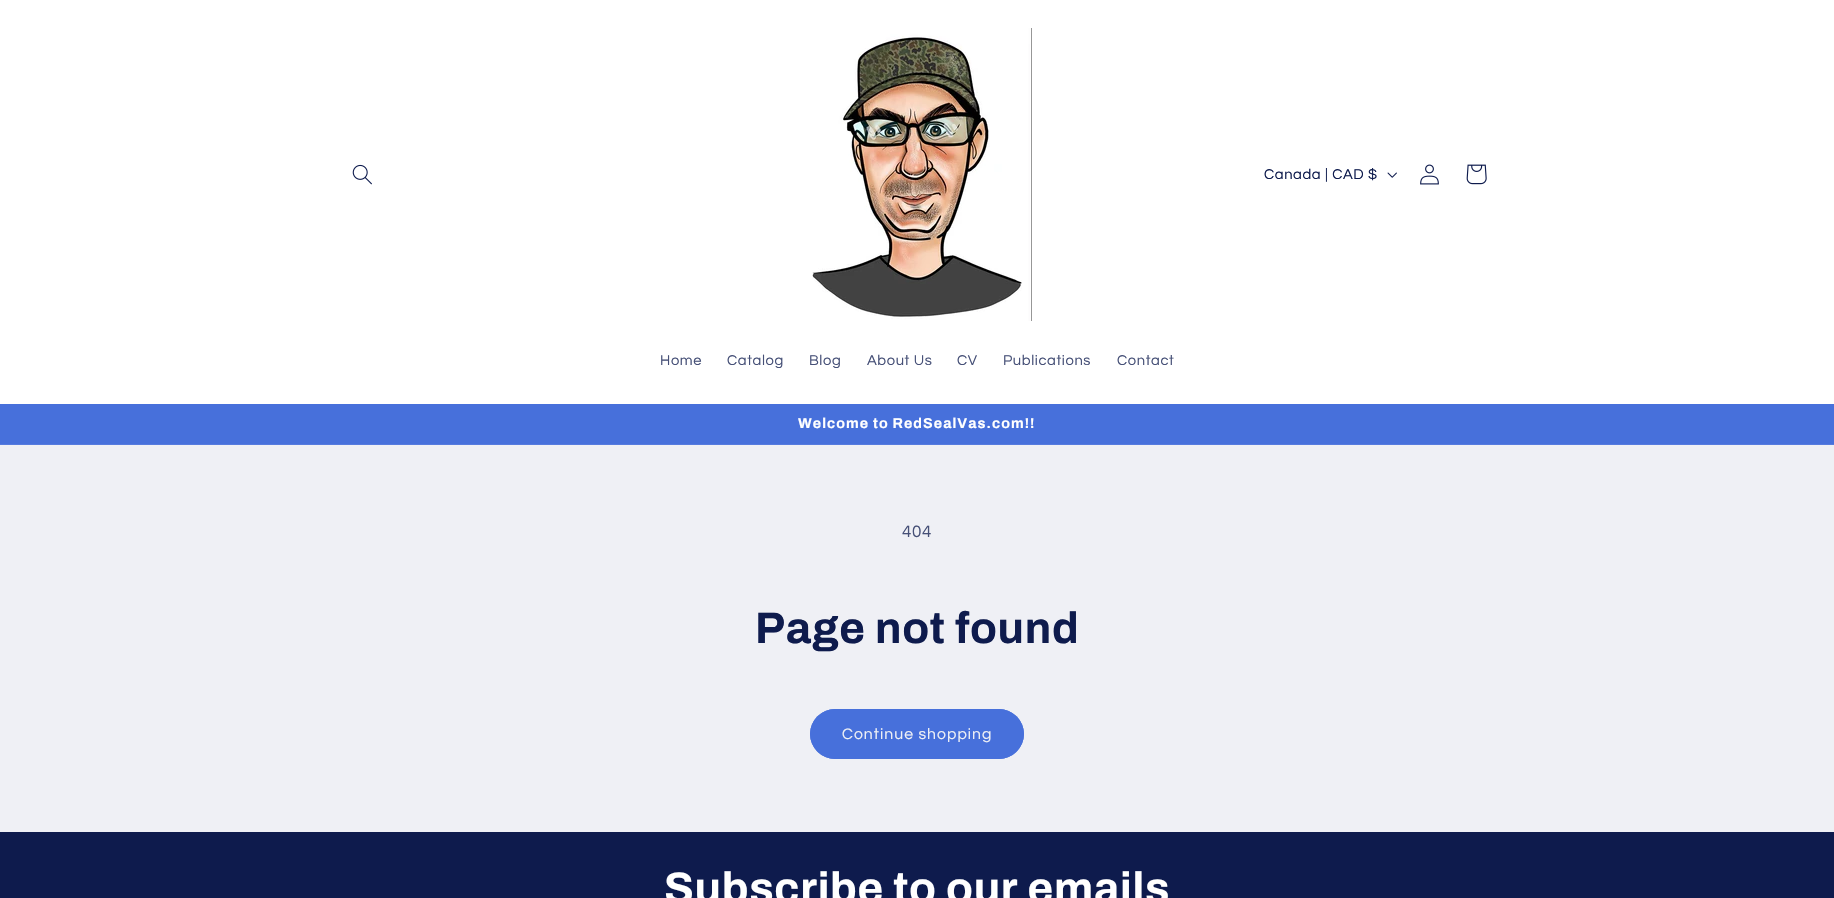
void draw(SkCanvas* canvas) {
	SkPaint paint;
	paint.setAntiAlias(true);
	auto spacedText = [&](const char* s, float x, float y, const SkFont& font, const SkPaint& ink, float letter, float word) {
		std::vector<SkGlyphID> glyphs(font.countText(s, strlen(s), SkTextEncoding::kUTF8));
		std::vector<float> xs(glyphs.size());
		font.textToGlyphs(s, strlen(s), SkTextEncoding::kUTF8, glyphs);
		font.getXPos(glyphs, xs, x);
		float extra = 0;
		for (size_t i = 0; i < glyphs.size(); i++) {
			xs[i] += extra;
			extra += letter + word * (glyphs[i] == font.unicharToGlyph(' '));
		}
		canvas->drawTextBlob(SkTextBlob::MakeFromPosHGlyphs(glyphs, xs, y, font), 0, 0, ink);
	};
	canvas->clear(0xffeff0f5);
	paint.setColor(0xffffffff);
	canvas->drawRect(SkRect::MakeXYWH(0, 0, 1834, 404), paint);
	canvas->drawImageRect(SkImages::DeferredFromEncodedData(SkData::MakeFromFileName("img1.png")), SkRect::MakeXYWH(352, 164, 20, 21), SkSamplingOptions());
	canvas->drawImageRect(SkImages::DeferredFromEncodedData(SkData::MakeFromFileName("img2.png")), SkRect::MakeXYWH(812, 28, 220, 293), SkSamplingOptions());
	SkFont f1(fontMgr->matchFamilyStyle("Questrial", SkFontStyle::Normal()), 14.75);
	f1.setSubpixel(true);
	paint.setColor(0xff0e1b4d);
	spacedText("Canada | CAD $", 1264, 179, f1, paint, 0.6, 0);
	canvas->drawImageRect(SkImages::DeferredFromEncodedData(SkData::MakeFromFileName("img3.png")), SkRect::MakeXYWH(1387, 172, 10, 6), SkSamplingOptions());
	canvas->drawImageRect(SkImages::DeferredFromEncodedData(SkData::MakeFromFileName("img4.png")), SkRect::MakeXYWH(1420, 164, 19, 21), SkSamplingOptions());
	canvas->drawImageRect(SkImages::DeferredFromEncodedData(SkData::MakeFromFileName("img5.png")), SkRect::MakeXYWH(1466, 164, 21, 21), SkSamplingOptions());
	paint.setColor(0xff465077);
	spacedText("Home", 660, 365, f1, paint, 0.6, 0);
	spacedText("Catalog", 727, 365, f1, paint, 0.6, 0);
	spacedText("Blog", 809, 365, f1, paint, 0.6, 0);
	spacedText("About Us", 867, 365, f1, paint, 0.6, 0);
	spacedText("CV", 957, 365, f1, paint, 0.6, 0);
	spacedText("Publications", 1003, 365, f1, paint, 0.6, 0);
	spacedText("Contact", 1117, 365, f1, paint, 0.6, 0);
	paint.setColor(0xff4770db);
	canvas->drawRect(SkRect::MakeXYWH(0, 404, 1834, 40), paint);
	paint.setColor(0xff567bde);
	canvas->drawRect(SkRect::MakeXYWH(0, 444, 1834, 1), paint);
	SkFont f2(fontMgr->matchFamilyStyle("Archivo", SkFontStyle::Bold()), 14.25);
	f2.setSubpixel(true);
	paint.setColor(0xffffffff);
	spacedText("Welcome to RedSealVas.com!!", 798, 428, f2, paint, 1.05, 0);
	SkFont f3(fontMgr->matchFamilyStyle("Questrial", SkFontStyle::Normal()), 17);
	f3.setSubpixel(true);
	paint.setColor(0xff465077);
	spacedText("404", 902, 537, f3, paint, 0.6, 0);
	SkFont f4(fontMgr->matchFamilyStyle("Archivo", SkFontStyle::Bold()), 44);
	f4.setSubpixel(true);
	paint.setColor(0xff0e1b4d);
	spacedText("Page not found", 755, 643, f4, paint, 0.7, 0);
	paint.setColor(0xff4770db);
	canvas->drawRoundRect(SkRect::MakeXYWH(810, 709, 214, 50), 25, 25, paint);
	paint.setStroke(true);
	paint.setStrokeWidth(1);
	canvas->drawRoundRect(SkRect::MakeXYWH(810.5, 709.5, 213, 49), 24.5, 24.5, paint);
	SkFont f5(fontMgr->matchFamilyStyle("Questrial", SkFontStyle::Normal()), 15.75);
	f5.setSubpixel(true);
	paint.setStroke(false);
	paint.setColor(0xffeff0f5);
	spacedText("Continue shopping", 842, 739, f5, paint, 1.05, 0);
	paint.setColor(0xff0e1b4d);
	canvas->drawRect(SkRect::MakeXYWH(0, 832, 1834, 66), paint);
	paint.setColor(0xffffffff);
	spacedText("Subscribe to our emails", 664, 903, f4, paint, 0.7, 0);
}
